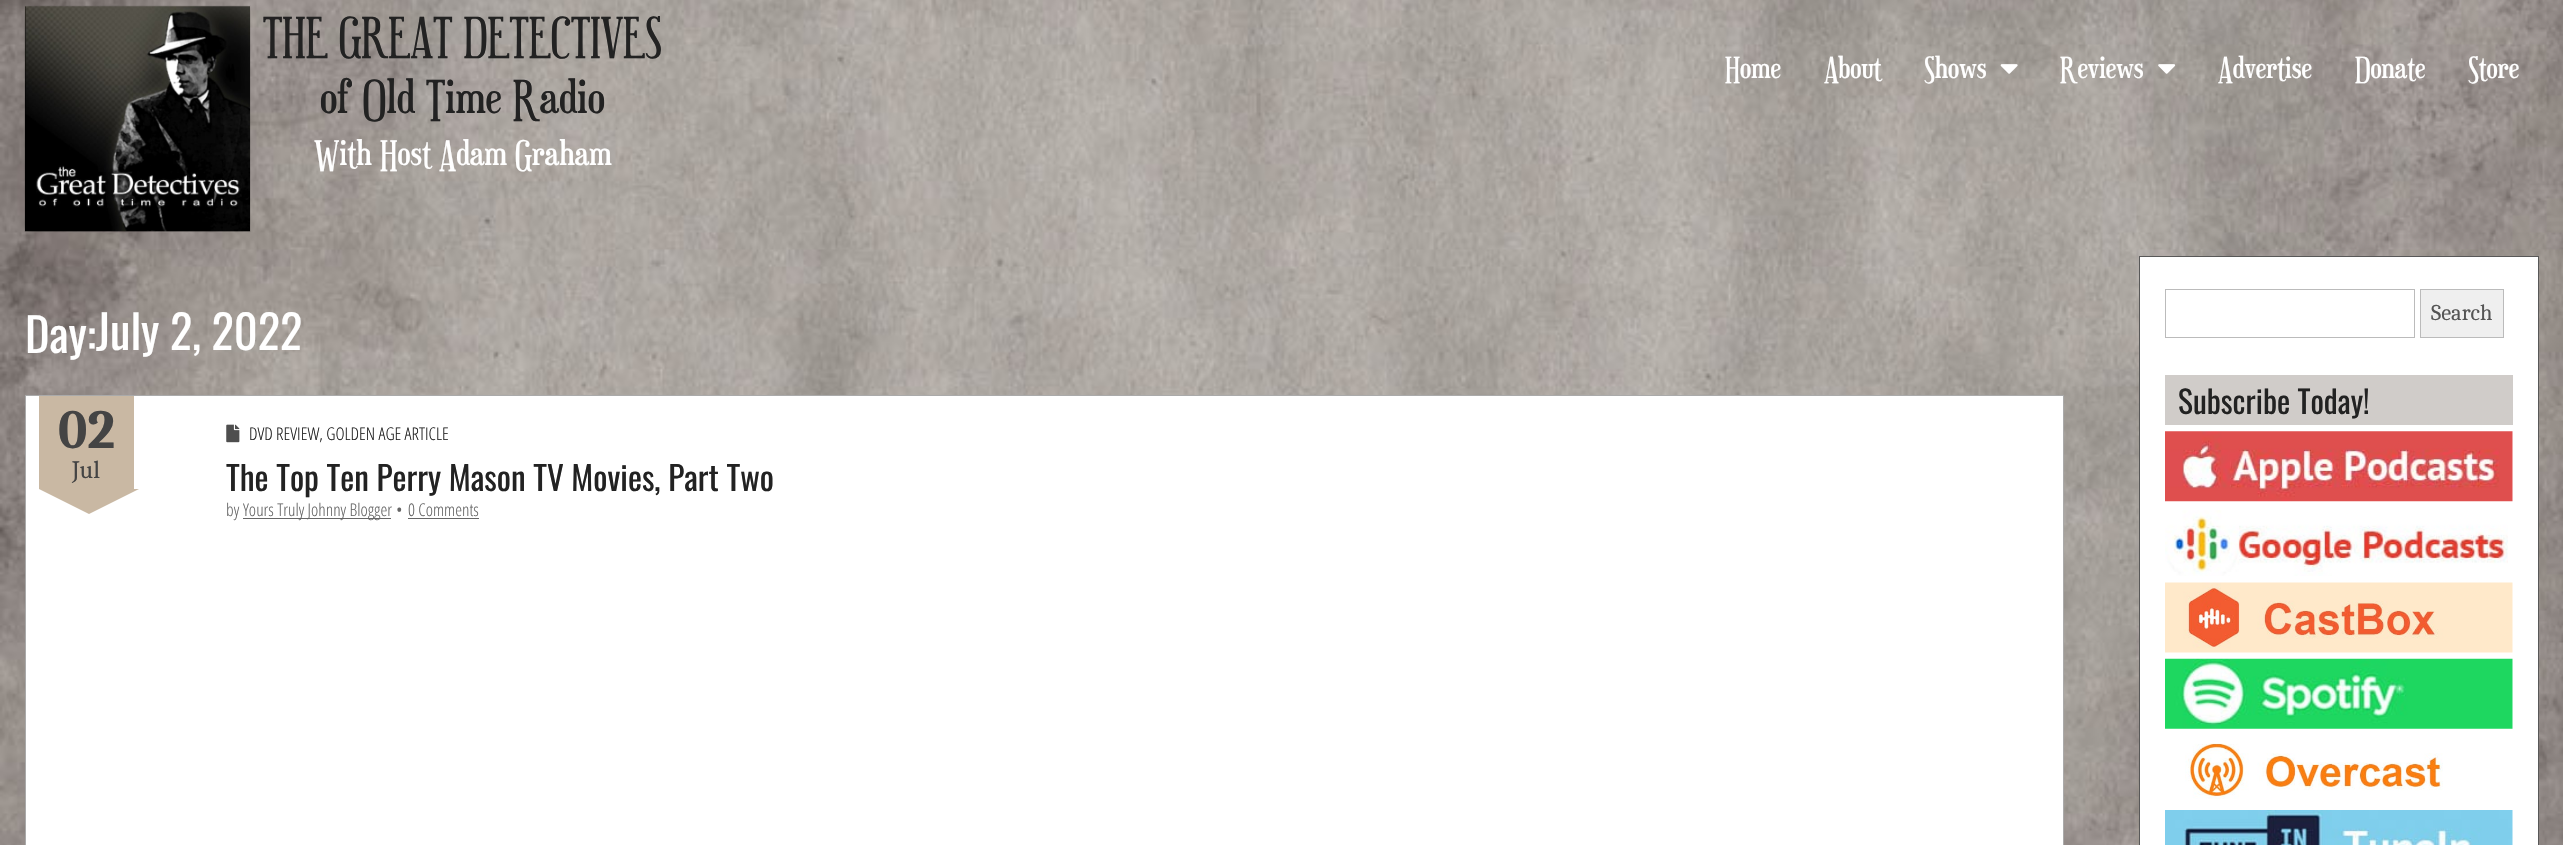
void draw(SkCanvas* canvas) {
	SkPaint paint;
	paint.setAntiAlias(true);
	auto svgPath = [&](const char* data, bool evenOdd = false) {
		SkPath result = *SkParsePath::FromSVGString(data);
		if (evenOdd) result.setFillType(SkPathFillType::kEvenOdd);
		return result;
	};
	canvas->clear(0xffffffff);
	canvas->drawImageRect(SkImages::DeferredFromEncodedData(SkData::MakeFromFileName("img1.png")), SkRect::MakeXYWH(0, 0, 2563, 845), SkSamplingOptions());
	canvas->drawImageRect(SkImages::DeferredFromEncodedData(SkData::MakeFromFileName("img2.png")), SkRect::MakeXYWH(24, 5, 227, 227), SkSamplingOptions());
	SkFont f1(fontMgr->matchFamilyStyle("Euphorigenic", SkFontStyle::Normal()), 45);
	f1.setSubpixel(true);
	paint.setColor(0xff222222);
	canvas->drawString("THE GREAT DETECTIVES", 263, 50, f1, paint);
	canvas->drawString("of Old Time Radio", 320, 113, f1, paint);
	SkFont f2(fontMgr->matchFamilyStyle("Euphorigenic", SkFontStyle::Normal()), 33.75);
	f2.setSubpixel(true);
	paint.setColor(0xffffffff);
	canvas->drawString("With Host Adam Graham", 314, 165, f2, paint);
	SkFont f3(fontMgr->matchFamilyStyle("Euphorigenic", SkFontStyle::Normal()), 29);
	f3.setSubpixel(true);
	canvas->drawString("Home", 1725, 78, f3, paint);
	canvas->drawString("About", 1824, 78, f3, paint);
	canvas->drawString("Shows", 1924, 78, f3, paint);
	canvas->drawImageRect(SkImages::DeferredFromEncodedData(SkData::MakeFromFileName("img3.png")), SkRect::MakeXYWH(2000, 64, 18, 10), SkSamplingOptions());
	canvas->drawString("Reviews", 2060, 78, f3, paint);
	canvas->drawImageRect(SkImages::DeferredFromEncodedData(SkData::MakeFromFileName("img4.png")), SkRect::MakeXYWH(2158, 64, 18, 10), SkSamplingOptions());
	canvas->drawString("Advertise", 2218, 78, f3, paint);
	canvas->drawString("Donate", 2355, 78, f3, paint);
	canvas->drawString("Store", 2468, 78, f3, paint);
	SkFont f4(fontMgr->matchFamilyStyle("Oswald", SkFontStyle::Normal()), 46.5);
	f4.setSubpixel(true);
	canvas->drawString("Day:", 25, 353, f4, paint);
	canvas->drawString("July 2, 2022", 96, 350, f4, paint);
	canvas->drawRect(SkRect::MakeXYWH(25.5, 395.5, 2038, 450), paint);
	paint.setStroke(true);
	paint.setStrokeWidth(1);
	paint.setColor(0xffaaaaaa);
	canvas->drawRect(SkRect::MakeXYWH(25.5, 395.5, 2038, 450), paint);
	paint.setStroke(false);
	paint.setColor(0xffc9b8a3);
	canvas->drawRect(SkRect::MakeXYWH(39, 396, 95, 93), paint);
	SkFont f5(fontMgr->matchFamilyStyle("Caladea", SkFontStyle::Bold()), 55);
	f5.setSubpixel(true);
	paint.setColor(0xff444444);
	canvas->drawString("02", 58, 448, f5, paint);
	SkFont f6(fontMgr->matchFamilyStyle("Caladea", SkFontStyle::Normal()), 25);
	f6.setSubpixel(true);
	canvas->drawString("Jul", 72, 478, f6, paint);
	paint.setColor(0xffc9b8a3);
	canvas->drawPath(svgPath("M39 489H139L89 514Z"), paint);
	canvas->drawImageRect(SkImages::DeferredFromEncodedData(SkData::MakeFromFileName("img5.png")), SkRect::MakeXYWH(226, 424, 14, 19), SkSamplingOptions());
	SkFont f7(fontMgr->matchFamilyStyle("Open Sans Condensed", SkFontStyle(300, SkFontStyle::kNormal_Width, SkFontStyle::kUpright_Slant)), 17.5);
	f7.setSubpixel(true);
	paint.setColor(0xff222222);
	canvas->drawString("DVD REVIEW, GOLDEN AGE ARTICLE", 249, 440, f7, paint);
	SkFont f8(fontMgr->matchFamilyStyle("Oswald", SkFontStyle::Normal()), 33.3);
	f8.setSubpixel(true);
	canvas->drawString("The Top Ten Perry Mason TV Movies, Part Two", 226, 491, f8, paint);
	paint.setColor(0xff666666);
	canvas->drawString("by", 226, 516, f7, paint);
	canvas->drawRect(SkRect::MakeXYWH(243, 518, 148, 1), paint);
	canvas->drawString("Yours Truly Johnny Blogger", 243, 516, f7, paint);
	canvas->drawString("•", 396, 516, f7, paint);
	canvas->drawString("0 Comments", 408, 516, f7, paint);
	canvas->drawRect(SkRect::MakeXYWH(408, 518, 71, 1), paint);
	paint.setColor(0xffffffff);
	canvas->drawRect(SkRect::MakeXYWH(2139.5, 256.5, 399, 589), paint);
	paint.setStroke(true);
	paint.setColor(0xff585858);
	canvas->drawRect(SkRect::MakeXYWH(2139.5, 256.5, 399, 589), paint);
	paint.setColor(0xffbbbbbb);
	canvas->drawRect(SkRect::MakeXYWH(2165.5, 289.5, 249, 48), paint);
	paint.setStroke(false);
	paint.setColor(0xffefefef);
	canvas->drawRect(SkRect::MakeXYWH(2420.5, 289.5, 83, 48), paint);
	paint.setStroke(true);
	paint.setColor(0xffbbbbbb);
	canvas->drawRect(SkRect::MakeXYWH(2420.5, 289.5, 83, 48), paint);
	SkFont f9(fontMgr->matchFamilyStyle("Caladea", SkFontStyle::Normal()), 22.5);
	f9.setSubpixel(true);
	paint.setStroke(false);
	paint.setColor(0xff555555);
	canvas->drawString("Search", 2431, 320, f9, paint);
	paint.setColor(0xffd0ccc9);
	canvas->drawRect(SkRect::MakeXYWH(2165, 375, 348, 50), paint);
	SkFont f10(fontMgr->matchFamilyStyle("Oswald", SkFontStyle::Normal()), 31.5);
	f10.setSubpixel(true);
	paint.setColor(0xff222222);
	canvas->drawString("Subscribe Today!", 2178, 414, f10, paint);
	canvas->drawImageRect(SkImages::DeferredFromEncodedData(SkData::MakeFromFileName("img6.png")), SkRect::MakeXYWH(2165, 431, 348, 71), SkSamplingOptions());
	canvas->drawImageRect(SkImages::DeferredFromEncodedData(SkData::MakeFromFileName("img7.png")), SkRect::MakeXYWH(2165, 510, 343, 66), SkSamplingOptions());
	canvas->drawImageRect(SkImages::DeferredFromEncodedData(SkData::MakeFromFileName("img8.png")), SkRect::MakeXYWH(2165, 582, 348, 71), SkSamplingOptions());
	canvas->drawImageRect(SkImages::DeferredFromEncodedData(SkData::MakeFromFileName("img9.png")), SkRect::MakeXYWH(2165, 658, 348, 71), SkSamplingOptions());
	canvas->drawImageRect(SkImages::DeferredFromEncodedData(SkData::MakeFromFileName("img10.png")), SkRect::MakeXYWH(2185, 743, 258, 56), SkSamplingOptions());
	canvas->drawImageRect(SkImages::DeferredFromEncodedData(SkData::MakeFromFileName("img11.png")), SkRect::MakeXYWH(2165, 810, 348, 35), SkSamplingOptions());
}
